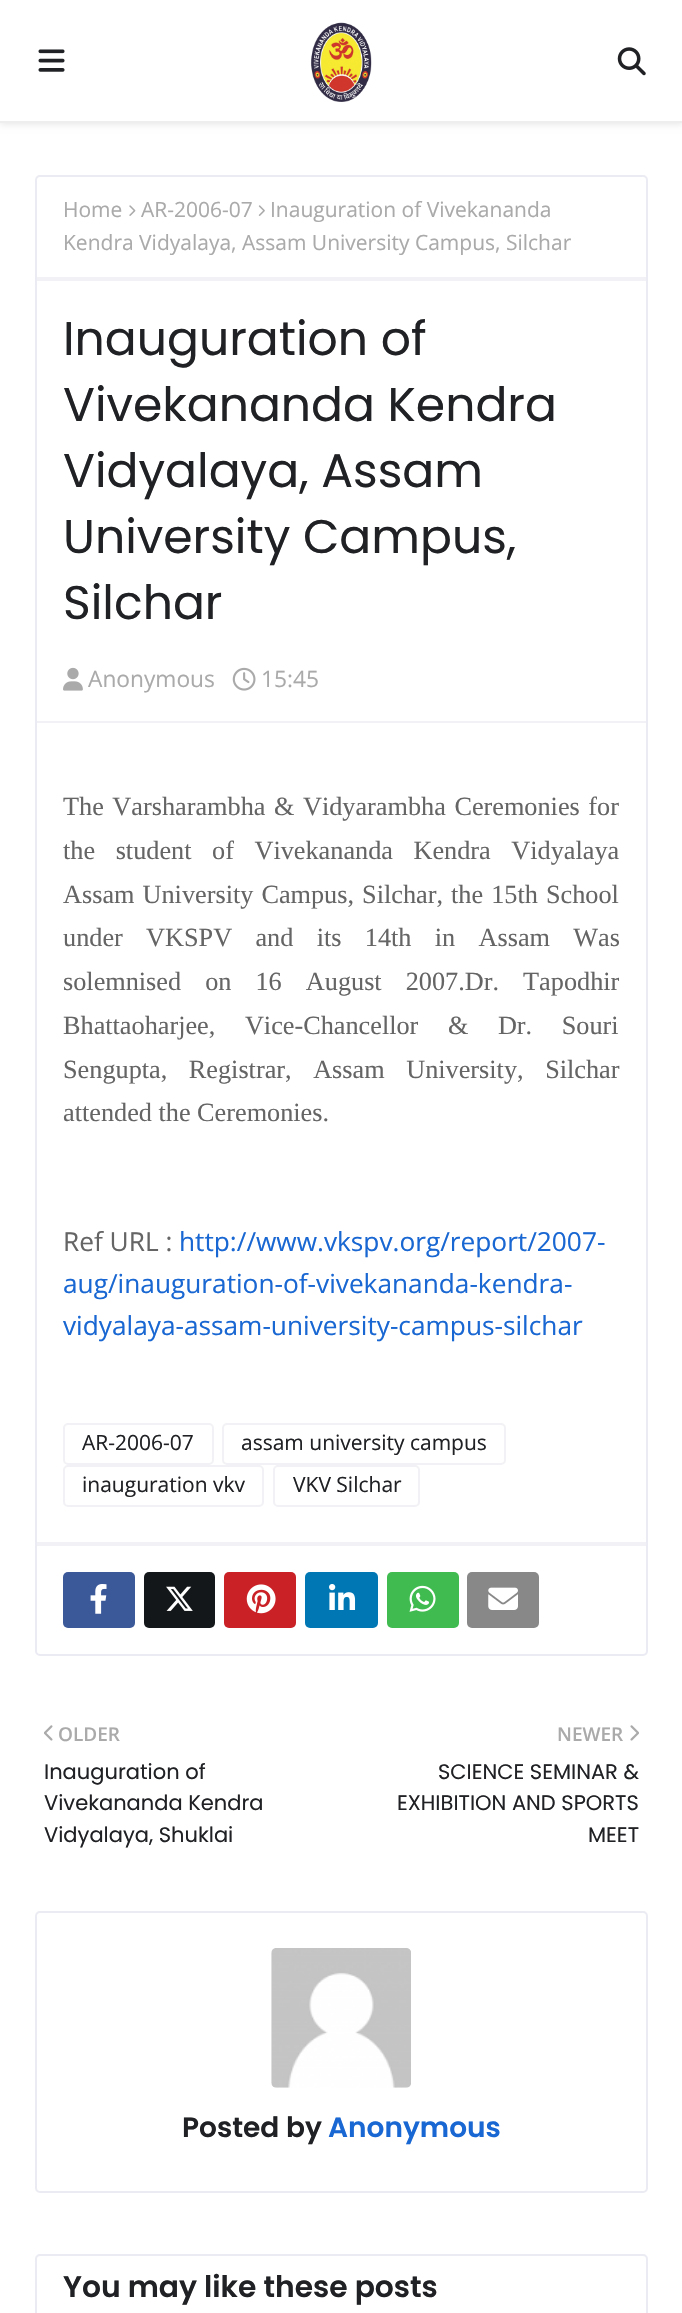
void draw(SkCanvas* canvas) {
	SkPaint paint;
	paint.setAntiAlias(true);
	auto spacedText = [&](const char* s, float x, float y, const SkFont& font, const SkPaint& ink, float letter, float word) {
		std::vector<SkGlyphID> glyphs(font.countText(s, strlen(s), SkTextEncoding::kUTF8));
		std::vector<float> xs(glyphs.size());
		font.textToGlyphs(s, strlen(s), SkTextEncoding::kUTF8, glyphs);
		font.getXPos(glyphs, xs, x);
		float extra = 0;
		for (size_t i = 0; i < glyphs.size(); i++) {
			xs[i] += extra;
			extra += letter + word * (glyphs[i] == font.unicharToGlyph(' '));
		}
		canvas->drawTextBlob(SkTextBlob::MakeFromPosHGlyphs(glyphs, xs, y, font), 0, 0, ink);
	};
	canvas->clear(0xffffffff);
	paint.setColor(0x1a000000);
	paint.setMaskFilter(SkMaskFilter::MakeBlur(kNormal_SkBlurStyle, 3.5));
	canvas->drawRect(SkRect::MakeXYWH(0, 2, 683, 122), paint);
	paint.setMaskFilter(nullptr);
	paint.setColor(0xffffffff);
	canvas->drawRect(SkRect::MakeXYWH(0, 0, 682, 121), paint);
	paint.setColor(0xffeeeeee);
	canvas->drawRect(SkRect::MakeXYWH(0, 121, 682, 2), paint);
	canvas->drawImageRect(SkImages::DeferredFromEncodedData(SkData::MakeFromFileName("img1.png")), SkRect::MakeXYWH(38, 49, 27, 23), SkSamplingOptions());
	canvas->drawImageRect(SkImages::DeferredFromEncodedData(SkData::MakeFromFileName("img2.png")), SkRect::MakeXYWH(310, 22, 62, 80), SkSamplingOptions());
	canvas->drawImageRect(SkImages::DeferredFromEncodedData(SkData::MakeFromFileName("img3.png")), SkRect::MakeXYWH(617, 47, 29, 29), SkSamplingOptions());
	paint.setStroke(true);
	paint.setStrokeWidth(2);
	paint.setColor(0xffebebf3);
	canvas->drawRoundRect(SkRect::MakeXYWH(36, 176, 611, 1479), 4, 4, paint);
	paint.setStroke(false);
	paint.setColor(0xfff2f2f6);
	canvas->drawRect(SkRect::MakeXYWH(37, 277, 609, 4), paint);
	SkFont f1(fontMgr->matchFamilyStyle("Open Sans", SkFontStyle::Normal()), 21);
	f1.setSubpixel(true);
	paint.setColor(0xffaaaaaa);
	canvas->drawString("Home", 63, 217, f1, paint);
	canvas->drawImageRect(SkImages::DeferredFromEncodedData(SkData::MakeFromFileName("img4.png")), SkRect::MakeXYWH(129, 205, 7, 11), SkSamplingOptions());
	canvas->drawString("AR-2006-07", 141, 217, f1, paint);
	canvas->drawImageRect(SkImages::DeferredFromEncodedData(SkData::MakeFromFileName("img5.png")), SkRect::MakeXYWH(258, 205, 7, 11), SkSamplingOptions());
	canvas->drawString("Inauguration of Vivekananda", 270, 217, f1, paint);
	canvas->drawString("Kendra Vidyalaya, Assam University Campus, Silchar", 63, 250, f1, paint);
	SkFont f2(fontMgr->matchFamilyStyle("Poppins", SkFontStyle::Normal()), 47.25);
	f2.setSubpixel(true);
	paint.setColor(0xff202124);
	canvas->drawString("Inauguration of", 63, 355, f2, paint);
	canvas->drawString("Vivekananda Kendra", 63, 421, f2, paint);
	canvas->drawString("Vidyalaya, Assam", 63, 487, f2, paint);
	canvas->drawString("University Campus,", 63, 553, f2, paint);
	canvas->drawString("Silchar", 63, 619, f2, paint);
	canvas->drawImageRect(SkImages::DeferredFromEncodedData(SkData::MakeFromFileName("img6.png")), SkRect::MakeXYWH(63, 667, 20, 24), SkSamplingOptions());
	SkFont f3(fontMgr->matchFamilyStyle("Open Sans", SkFontStyle::Normal()), 22.75);
	f3.setSubpixel(true);
	paint.setColor(0xffaaaaaa);
	canvas->drawString("Anonymous", 88, 687, f3, paint);
	canvas->drawImageRect(SkImages::DeferredFromEncodedData(SkData::MakeFromFileName("img7.png")), SkRect::MakeXYWH(232, 667, 24, 24), SkSamplingOptions());
	canvas->drawString("15:45", 261, 687, f3, paint);
	paint.setColor(0xfff2f2f6);
	canvas->drawRect(SkRect::MakeXYWH(37, 721, 609, 2), paint);
	SkFont f4(fontMgr->matchFamilyStyle("Liberation Serif", SkFontStyle::Normal()), 26.25);
	f4.setSubpixel(true);
	paint.setColor(0xff656565);
	spacedText("The Varsharambha & Vidyarambha Ceremonies for", 63, 815, f4, paint, 0, 2);
	spacedText("the student of Vivekananda Kendra Vidyalaya", 63, 859, f4, paint, 0, 14);
	spacedText("Assam University Campus, Silchar, the 15th School", 63, 903, f4, paint, 0, 1.5);
	spacedText("under VKSPV and its 14th in Assam Was", 63, 946, f4, paint, 0, 16.75);
	spacedText("solemnised on 16 August 2007.Dr. Tapodhir", 63, 990, f4, paint, 0, 17.5);
	spacedText("Bhattaoharjee, Vice-Chancellor & Dr. Souri", 63, 1034, f4, paint, 0, 23);
	spacedText("Sengupta, Registrar, Assam University, Silchar", 63, 1078, f4, paint, 0, 15);
	canvas->drawString("attended the Ceremonies.", 63, 1121, f4, paint);
	SkFont f5(fontMgr->matchFamilyStyle("Open Sans", SkFontStyle::Normal()), 26.25);
	f5.setSubpixel(true);
	canvas->drawString("Ref URL :", 63, 1251, f5, paint);
	paint.setColor(0xff1967d2);
	canvas->drawString("http://www.vkspv.org/report/2007-", 179, 1251, f5, paint);
	canvas->drawString("aug/inauguration-of-vivekananda-kendra-", 63, 1293, f5, paint);
	canvas->drawString("vidyalaya-assam-university-campus-silchar", 63, 1335, f5, paint);
	paint.setStroke(true);
	paint.setColor(0xfff2f2f6);
	canvas->drawRoundRect(SkRect::MakeXYWH(64, 1424, 149, 40), 4, 4, paint);
	paint.setStroke(false);
	paint.setColor(0xff202124);
	canvas->drawString("AR-2006-07", 82, 1450, f1, paint);
	paint.setStroke(true);
	paint.setColor(0xfff2f2f6);
	canvas->drawRoundRect(SkRect::MakeXYWH(223, 1424, 282, 40), 4, 4, paint);
	paint.setStroke(false);
	paint.setColor(0xff202124);
	canvas->drawString("assam university campus", 241, 1450, f1, paint);
	paint.setStroke(true);
	paint.setColor(0xfff2f2f6);
	canvas->drawRoundRect(SkRect::MakeXYWH(64, 1466, 199, 40), 4, 4, paint);
	paint.setStroke(false);
	paint.setColor(0xff202124);
	canvas->drawString("inauguration vkv", 82, 1492, f1, paint);
	paint.setStroke(true);
	paint.setColor(0xfff2f2f6);
	canvas->drawRoundRect(SkRect::MakeXYWH(274, 1466, 145, 40), 4, 4, paint);
	paint.setStroke(false);
	paint.setColor(0xff202124);
	canvas->drawString("VKV Silchar", 293, 1492, f1, paint);
	paint.setColor(0xfff2f2f6);
	canvas->drawRect(SkRect::MakeXYWH(37, 1542, 609, 4), paint);
	paint.setColor(0xff3b5999);
	canvas->drawRoundRect(SkRect::MakeXYWH(63, 1572, 72, 56), 5, 5, paint);
	canvas->drawImageRect(SkImages::DeferredFromEncodedData(SkData::MakeFromFileName("img8.png")), SkRect::MakeXYWH(90, 1584, 17, 30), SkSamplingOptions());
	paint.setColor(0xff14171a);
	canvas->drawRoundRect(SkRect::MakeXYWH(144, 1572, 71, 56), 5, 5, paint);
	canvas->drawImageRect(SkImages::DeferredFromEncodedData(SkData::MakeFromFileName("img9.png")), SkRect::MakeXYWH(166, 1586, 27, 25), SkSamplingOptions());
	paint.setColor(0xffca2127);
	canvas->drawRoundRect(SkRect::MakeXYWH(224, 1572, 72, 56), 5, 5, paint);
	canvas->drawImageRect(SkImages::DeferredFromEncodedData(SkData::MakeFromFileName("img10.png")), SkRect::MakeXYWH(246, 1584, 30, 30), SkSamplingOptions());
	paint.setColor(0xff0077b5);
	canvas->drawRoundRect(SkRect::MakeXYWH(305, 1572, 73, 56), 5, 5, paint);
	canvas->drawImageRect(SkImages::DeferredFromEncodedData(SkData::MakeFromFileName("img11.png")), SkRect::MakeXYWH(329, 1584, 27, 26), SkSamplingOptions());
	paint.setColor(0xff3fbb50);
	canvas->drawRoundRect(SkRect::MakeXYWH(387, 1572, 72, 56), 5, 5, paint);
	canvas->drawImageRect(SkImages::DeferredFromEncodedData(SkData::MakeFromFileName("img12.png")), SkRect::MakeXYWH(409, 1585, 27, 27), SkSamplingOptions());
	paint.setColor(0xff888888);
	canvas->drawRoundRect(SkRect::MakeXYWH(467, 1572, 72, 56), 5, 5, paint);
	canvas->drawImageRect(SkImages::DeferredFromEncodedData(SkData::MakeFromFileName("img13.png")), SkRect::MakeXYWH(488, 1587, 30, 23), SkSamplingOptions());
	canvas->drawImageRect(SkImages::DeferredFromEncodedData(SkData::MakeFromFileName("img14.png")), SkRect::MakeXYWH(44, 1725, 9, 16), SkSamplingOptions());
	SkFont f6(fontMgr->matchFamilyStyle("Open Sans", SkFontStyle(600, SkFontStyle::kNormal_Width, SkFontStyle::kUpright_Slant)), 19);
	f6.setSubpixel(true);
	paint.setColor(0xffaaaaaa);
	canvas->drawString("OLDER", 58, 1741, f6, paint);
	SkFont f7(fontMgr->matchFamilyStyle("Poppins", SkFontStyle::Normal()), 21);
	f7.setSubpixel(true);
	paint.setColor(0xff202124);
	canvas->drawString("Inauguration of", 44, 1779, f7, paint);
	canvas->drawString("Vivekananda Kendra", 44, 1810, f7, paint);
	canvas->drawString("Vidyalaya, Shuklai", 44, 1842, f7, paint);
	paint.setColor(0xffaaaaaa);
	canvas->drawString("NEWER", 557, 1741, f6, paint);
	canvas->drawImageRect(SkImages::DeferredFromEncodedData(SkData::MakeFromFileName("img15.png")), SkRect::MakeXYWH(630, 1725, 9, 16), SkSamplingOptions());
	paint.setColor(0xff202124);
	canvas->drawString("SCIENCE SEMINAR &", 438, 1779, f7, paint);
	canvas->drawString("EXHIBITION AND SPORTS", 397, 1810, f7, paint);
	canvas->drawString("MEET", 588, 1842, f7, paint);
	paint.setStroke(true);
	paint.setColor(0xffebebf3);
	canvas->drawRoundRect(SkRect::MakeXYWH(36, 1912, 611, 280), 4, 4, paint);
	canvas->drawImageRect(SkImages::DeferredFromEncodedData(SkData::MakeFromFileName("img16.png")), SkRect::MakeXYWH(271, 1948, 140, 140), SkSamplingOptions());
	SkFont f8(fontMgr->matchFamilyStyle("Poppins", SkFontStyle(600, SkFontStyle::kNormal_Width, SkFontStyle::kUpright_Slant)), 28);
	f8.setSubpixel(true);
	paint.setStroke(false);
	paint.setColor(0xff202124);
	canvas->drawString("Posted by", 182, 2137, f8, paint);
	paint.setColor(0xff1967d2);
	canvas->drawString("Anonymous", 328, 2137, f8, paint);
	paint.setStroke(true);
	paint.setColor(0xffebebf3);
	canvas->drawRoundRect(SkRect::MakeXYWH(36, 2255, 611, 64), 4, 4, paint);
	SkFont f9(fontMgr->matchFamilyStyle("Poppins", SkFontStyle(600, SkFontStyle::kNormal_Width, SkFontStyle::kUpright_Slant)), 29.75);
	f9.setSubpixel(true);
	paint.setStroke(false);
	paint.setColor(0xff202124);
	canvas->drawString("You may like these posts", 63, 2297, f9, paint);
}
